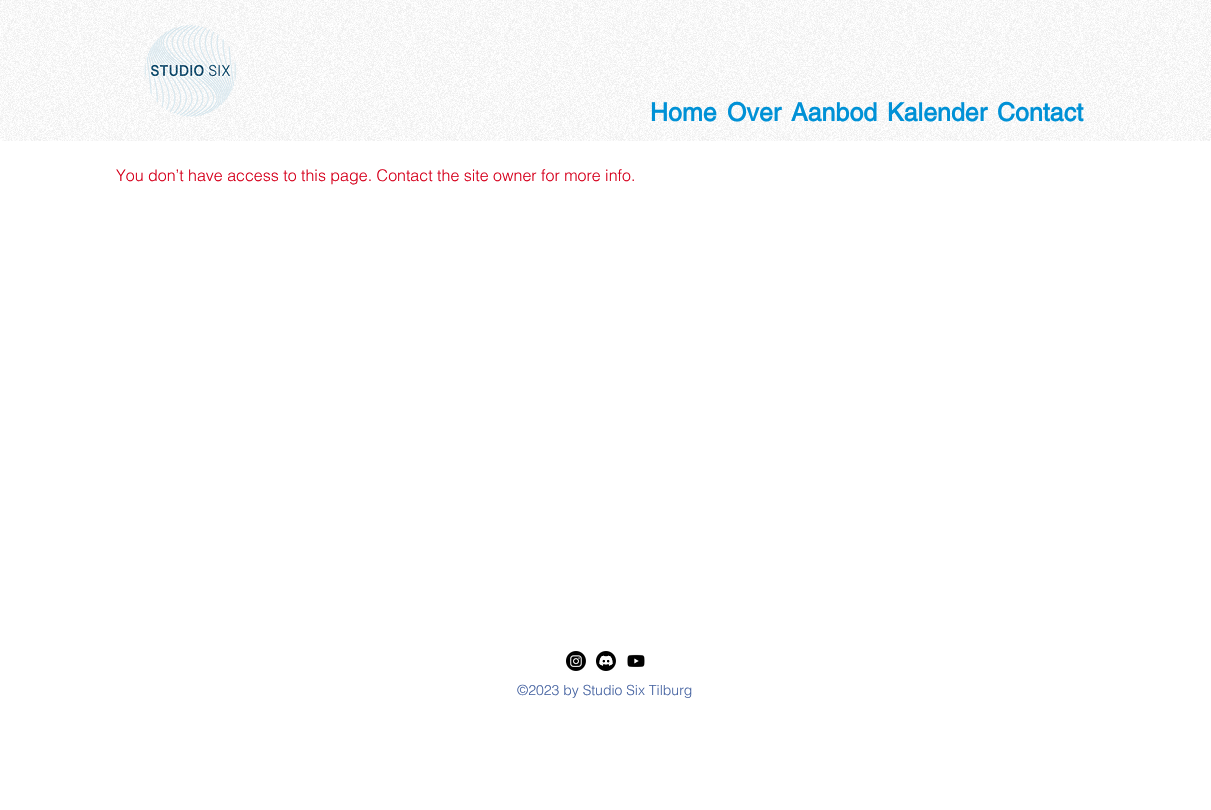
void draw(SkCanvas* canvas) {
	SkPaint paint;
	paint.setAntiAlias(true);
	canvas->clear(0xffffffff);
	canvas->drawImageRect(SkImages::DeferredFromEncodedData(SkData::MakeFromFileName("img1.png")), SkRect::MakeXYWH(0, 0, 1211, 141), SkSamplingOptions());
	canvas->drawImageRect(SkImages::DeferredFromEncodedData(SkData::MakeFromFileName("img2.png")), SkRect::MakeXYWH(144, 25, 92, 92), SkSamplingOptions());
	SkFont f1(fontMgr->matchFamilyStyle("helvetica", SkFontStyle::Bold()), 25);
	f1.setSubpixel(true);
	paint.setColor(0xff0091d6);
	canvas->drawString("Home", 650, 121, f1, paint);
	canvas->drawString("Over", 727, 121, f1, paint);
	canvas->drawString("Aanbod", 791, 121, f1, paint);
	canvas->drawString("Kalender", 887, 121, f1, paint);
	canvas->drawString("Contact", 997, 121, f1, paint);
	SkFont f2(fontMgr->matchFamilyStyle("helvetica", SkFontStyle(300, SkFontStyle::kNormal_Width, SkFontStyle::kUpright_Slant)), 16);
	f2.setSubpixel(true);
	paint.setColor(0xffd6001c);
	canvas->drawString("You don’t have access to this page. Contact the site owner for more info.", 116, 181, f2, paint);
	canvas->drawImageRect(SkImages::DeferredFromEncodedData(SkData::MakeFromFileName("img3.png")), SkRect::MakeXYWH(566, 651, 20, 20), SkSamplingOptions());
	canvas->drawImageRect(SkImages::DeferredFromEncodedData(SkData::MakeFromFileName("img4.png")), SkRect::MakeXYWH(596, 651, 20, 20), SkSamplingOptions());
	canvas->drawImageRect(SkImages::DeferredFromEncodedData(SkData::MakeFromFileName("img5.png")), SkRect::MakeXYWH(627, 654, 18, 13), SkSamplingOptions());
	SkFont f3(fontMgr->matchFamilyStyle("helvetica", SkFontStyle(300, SkFontStyle::kNormal_Width, SkFontStyle::kUpright_Slant)), 14);
	f3.setSubpixel(true);
	paint.setColor(0xff4764a2);
	canvas->drawString("©2023 by Studio Six Tilburg", 517, 695, f3, paint);
}
